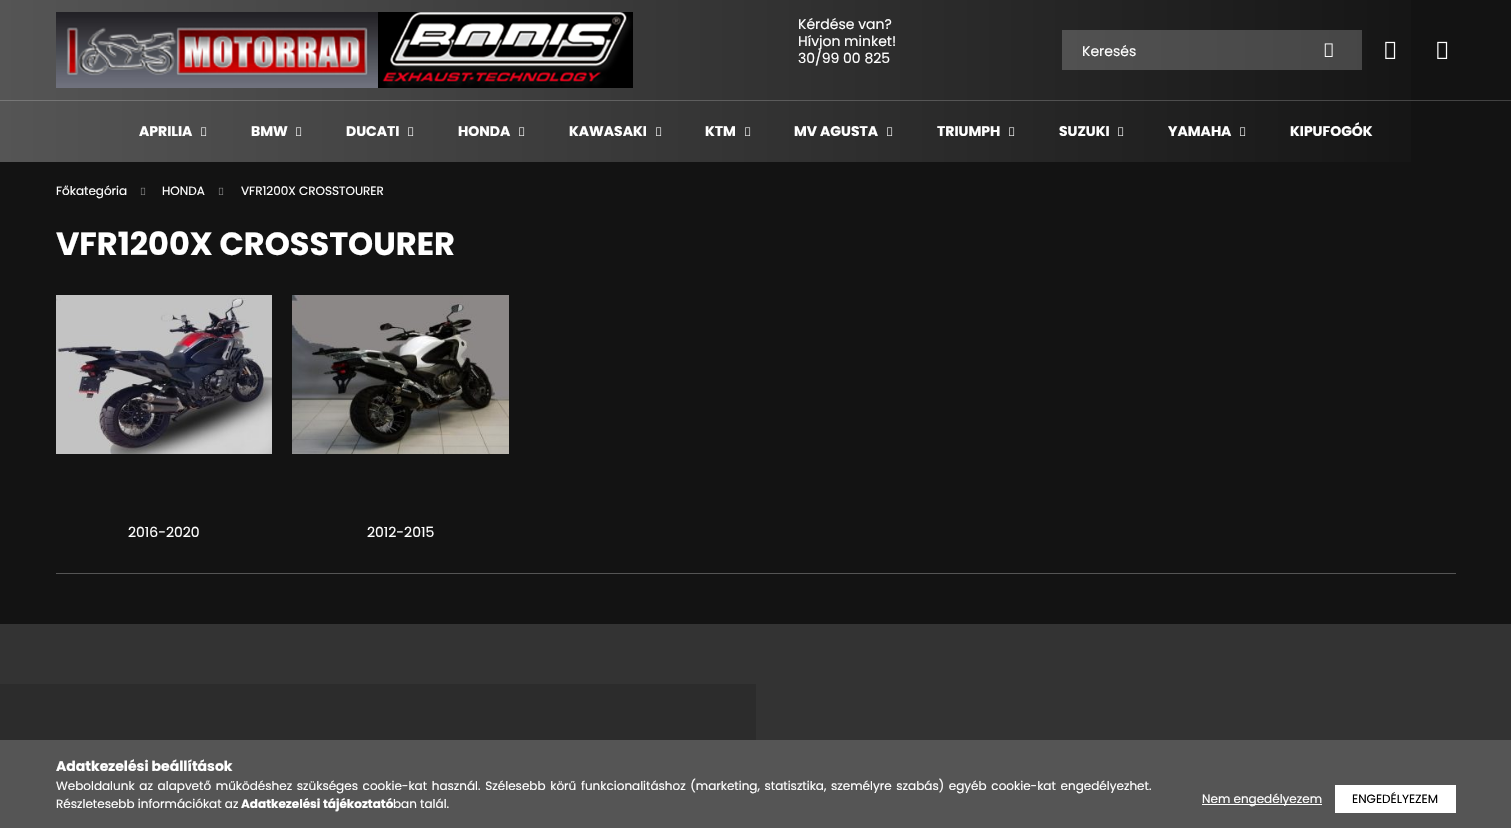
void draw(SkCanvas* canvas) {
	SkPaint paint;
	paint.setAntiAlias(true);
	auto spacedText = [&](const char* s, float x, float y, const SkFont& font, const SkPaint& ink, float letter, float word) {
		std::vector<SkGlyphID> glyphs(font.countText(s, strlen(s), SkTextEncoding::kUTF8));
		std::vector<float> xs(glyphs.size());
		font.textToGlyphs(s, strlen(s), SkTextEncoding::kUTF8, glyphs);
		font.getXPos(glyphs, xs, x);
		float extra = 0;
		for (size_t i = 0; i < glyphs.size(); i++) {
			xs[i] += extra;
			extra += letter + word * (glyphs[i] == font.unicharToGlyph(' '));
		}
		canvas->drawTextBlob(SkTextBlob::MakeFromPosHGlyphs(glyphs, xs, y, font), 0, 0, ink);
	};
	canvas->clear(0xff131313);
	{
		const SkColor colors[] = {0xff555555, 0xff111111};
		const float stops[] = {0, 1};
		const SkPoint ends[] = {{0, 50}, {1511, 50}};
		paint.setShader(SkGradientShader::MakeLinear(ends, colors, stops, 2, SkTileMode::kClamp));
		paint.setAlpha(255);
	}
	canvas->drawRect(SkRect::MakeXYWH(0, 0, 1411, 100), paint);
	{
		const SkColor colors[] = {0xff777777, 0xff414141};
		const float stops[] = {0, 1};
		const SkPoint ends[] = {{0, 50}, {1511, 50}};
		paint.setShader(SkGradientShader::MakeLinear(ends, colors, stops, 2, SkTileMode::kClamp));
		paint.setAlpha(255);
	}
	canvas->drawRect(SkRect::MakeXYWH(1062, 30, 300, 40), paint);
	canvas->drawImageRect(SkImages::DeferredFromEncodedData(SkData::MakeFromFileName("img1.png")), SkRect::MakeXYWH(56, 12, 577, 76), SkSamplingOptions());
	SkFont f1(fontMgr->matchFamilyStyle("Poppins", SkFontStyle::Normal()), 14);
	f1.setSubpixel(true);
	paint.setShader(nullptr);
	paint.setColor(0xffffffff);
	canvas->drawString("Kérdése van?", 798, 29, f1, paint);
	canvas->drawString("Hívjon minket!", 798, 46, f1, paint);
	canvas->drawString("30/99 00 825", 798, 63, f1, paint);
	canvas->drawString("Keresés", 1082, 56, f1, paint);
	canvas->drawImageRect(SkImages::DeferredFromEncodedData(SkData::MakeFromFileName("img2.png")), SkRect::MakeXYWH(1324, 43, 9, 14), SkSamplingOptions());
	canvas->drawImageRect(SkImages::DeferredFromEncodedData(SkData::MakeFromFileName("img3.png")), SkRect::MakeXYWH(1385, 41, 11, 18), SkSamplingOptions());
	canvas->drawImageRect(SkImages::DeferredFromEncodedData(SkData::MakeFromFileName("img4.png")), SkRect::MakeXYWH(1437, 41, 11, 18), SkSamplingOptions());
	{
		const SkColor colors[] = {0xff555555, 0xff111111};
		const float stops[] = {0, 1};
		const SkPoint ends[] = {{0, 132}, {1511, 131}};
		paint.setShader(SkGradientShader::MakeLinear(ends, colors, stops, 2, SkTileMode::kClamp));
		paint.setAlpha(255);
	}
	canvas->drawRect(SkRect::MakeXYWH(0, 101, 1411, 61), paint);
	{
		const SkColor colors[] = {0xff777777, 0xff414141};
		const float stops[] = {0, 1};
		const SkPoint ends[] = {{0, 132}, {1511, 131}};
		paint.setShader(SkGradientShader::MakeLinear(ends, colors, stops, 2, SkTileMode::kClamp));
		paint.setAlpha(255);
	}
	canvas->drawRect(SkRect::MakeXYWH(0, 100, 1511, 1), paint);
	SkFont f2(fontMgr->matchFamilyStyle("Poppins", SkFontStyle::Bold()), 14);
	f2.setSubpixel(true);
	paint.setShader(nullptr);
	paint.setColor(0xffffffff);
	canvas->drawString("APRILIA", 139, 136, f2, paint);
	canvas->drawImageRect(SkImages::DeferredFromEncodedData(SkData::MakeFromFileName("img5.png")), SkRect::MakeXYWH(201, 127, 6, 9), SkSamplingOptions());
	canvas->drawString("BMW", 251, 136, f2, paint);
	canvas->drawImageRect(SkImages::DeferredFromEncodedData(SkData::MakeFromFileName("img6.png")), SkRect::MakeXYWH(296, 127, 6, 9), SkSamplingOptions());
	canvas->drawString("DUCATI", 346, 136, f2, paint);
	canvas->drawImageRect(SkImages::DeferredFromEncodedData(SkData::MakeFromFileName("img7.png")), SkRect::MakeXYWH(408, 127, 6, 9), SkSamplingOptions());
	canvas->drawString("HONDA", 458, 136, f2, paint);
	canvas->drawImageRect(SkImages::DeferredFromEncodedData(SkData::MakeFromFileName("img8.png")), SkRect::MakeXYWH(519, 127, 6, 9), SkSamplingOptions());
	canvas->drawString("KAWASAKI", 569, 136, f2, paint);
	canvas->drawImageRect(SkImages::DeferredFromEncodedData(SkData::MakeFromFileName("img9.png")), SkRect::MakeXYWH(656, 127, 6, 9), SkSamplingOptions());
	canvas->drawString("KTM", 705, 136, f2, paint);
	canvas->drawImageRect(SkImages::DeferredFromEncodedData(SkData::MakeFromFileName("img10.png")), SkRect::MakeXYWH(745, 127, 6, 9), SkSamplingOptions());
	canvas->drawString("MV AGUSTA", 794, 136, f2, paint);
	canvas->drawImageRect(SkImages::DeferredFromEncodedData(SkData::MakeFromFileName("img11.png")), SkRect::MakeXYWH(887, 127, 6, 9), SkSamplingOptions());
	canvas->drawString("TRIUMPH", 937, 136, f2, paint);
	canvas->drawImageRect(SkImages::DeferredFromEncodedData(SkData::MakeFromFileName("img12.png")), SkRect::MakeXYWH(1009, 127, 6, 9), SkSamplingOptions());
	canvas->drawString("SUZUKI", 1059, 136, f2, paint);
	canvas->drawImageRect(SkImages::DeferredFromEncodedData(SkData::MakeFromFileName("img13.png")), SkRect::MakeXYWH(1118, 127, 6, 9), SkSamplingOptions());
	canvas->drawString("YAMAHA", 1168, 136, f2, paint);
	canvas->drawImageRect(SkImages::DeferredFromEncodedData(SkData::MakeFromFileName("img14.png")), SkRect::MakeXYWH(1240, 127, 6, 9), SkSamplingOptions());
	canvas->drawString("KIPUFOGÓK", 1290, 136, f2, paint);
	SkFont f3(fontMgr->matchFamilyStyle("Poppins", SkFontStyle::Normal()), 12);
	f3.setSubpixel(true);
	canvas->drawString("Főkategória", 56, 195, f3, paint);
	canvas->drawImageRect(SkImages::DeferredFromEncodedData(SkData::MakeFromFileName("img15.png")), SkRect::MakeXYWH(140, 187, 6, 8), SkSamplingOptions());
	canvas->drawString("HONDA", 162, 195, f3, paint);
	canvas->drawImageRect(SkImages::DeferredFromEncodedData(SkData::MakeFromFileName("img15.png")), SkRect::MakeXYWH(218, 187, 6, 8), SkSamplingOptions());
	canvas->drawString("VFR1200X CROSSTOURER", 241, 195, f3, paint);
	SkFont f4(fontMgr->matchFamilyStyle("Poppins", SkFontStyle::Bold()), 32);
	f4.setSubpixel(true);
	canvas->drawString("VFR1200X CROSSTOURER", 56, 255, f4, paint);
	paint.setColor(0xff555555);
	canvas->drawRect(SkRect::MakeXYWH(56, 573, 1400, 1), paint);
	canvas->drawImageRect(SkImages::DeferredFromEncodedData(SkData::MakeFromFileName("img16.png")), SkRect::MakeXYWH(56, 295, 216, 159), SkSamplingOptions());
	paint.setColor(0xffffffff);
	canvas->drawString("2016-2020", 128, 537, f1, paint);
	canvas->drawImageRect(SkImages::DeferredFromEncodedData(SkData::MakeFromFileName("img17.png")), SkRect::MakeXYWH(292, 295, 217, 159), SkSamplingOptions());
	canvas->drawString("2012-2015", 367, 537, f1, paint);
	paint.setColor(0xff333333);
	canvas->drawRect(SkRect::MakeXYWH(0, 624, 1511, 116), paint);
	paint.setColor(0xff2c2c2c);
	canvas->drawRect(SkRect::MakeXYWH(0, 684, 756, 56), paint);
	paint.setColor(0xff555555);
	canvas->drawRect(SkRect::MakeXYWH(0, 740, 1511, 88), paint);
	paint.setColor(0xffffffff);
	canvas->drawString("Adatkezelési beállítások", 56, 771, f2, paint);
	spacedText("Weboldalunk az alapvető működéshez szükséges cookie-kat használ. Szélesebb körű funkcionalitáshoz (marketing, statisztika, személyre szabás) egyéb cookie-kat engedélyezhet.", 56, 790, f3, paint, 0, 1.5);
	canvas->drawString("Részletesebb információkat az", 56, 808, f3, paint);
	SkFont f5(fontMgr->matchFamilyStyle("Poppins", SkFontStyle::Bold()), 12);
	f5.setSubpixel(true);
	canvas->drawString("Adatkezelési tájékoztató", 241, 808, f5, paint);
	canvas->drawString("ban talál.", 393, 808, f3, paint);
	canvas->drawRect(SkRect::MakeXYWH(1202, 804, 120, 1), paint);
	canvas->drawString("Nem engedélyezem", 1202, 803, f3, paint);
	canvas->drawRect(SkRect::MakeXYWH(1335, 785, 121, 28), paint);
	paint.setColor(0xff000000);
	canvas->drawString("ENGEDÉLYEZEM", 1352, 803, f3, paint);
}
